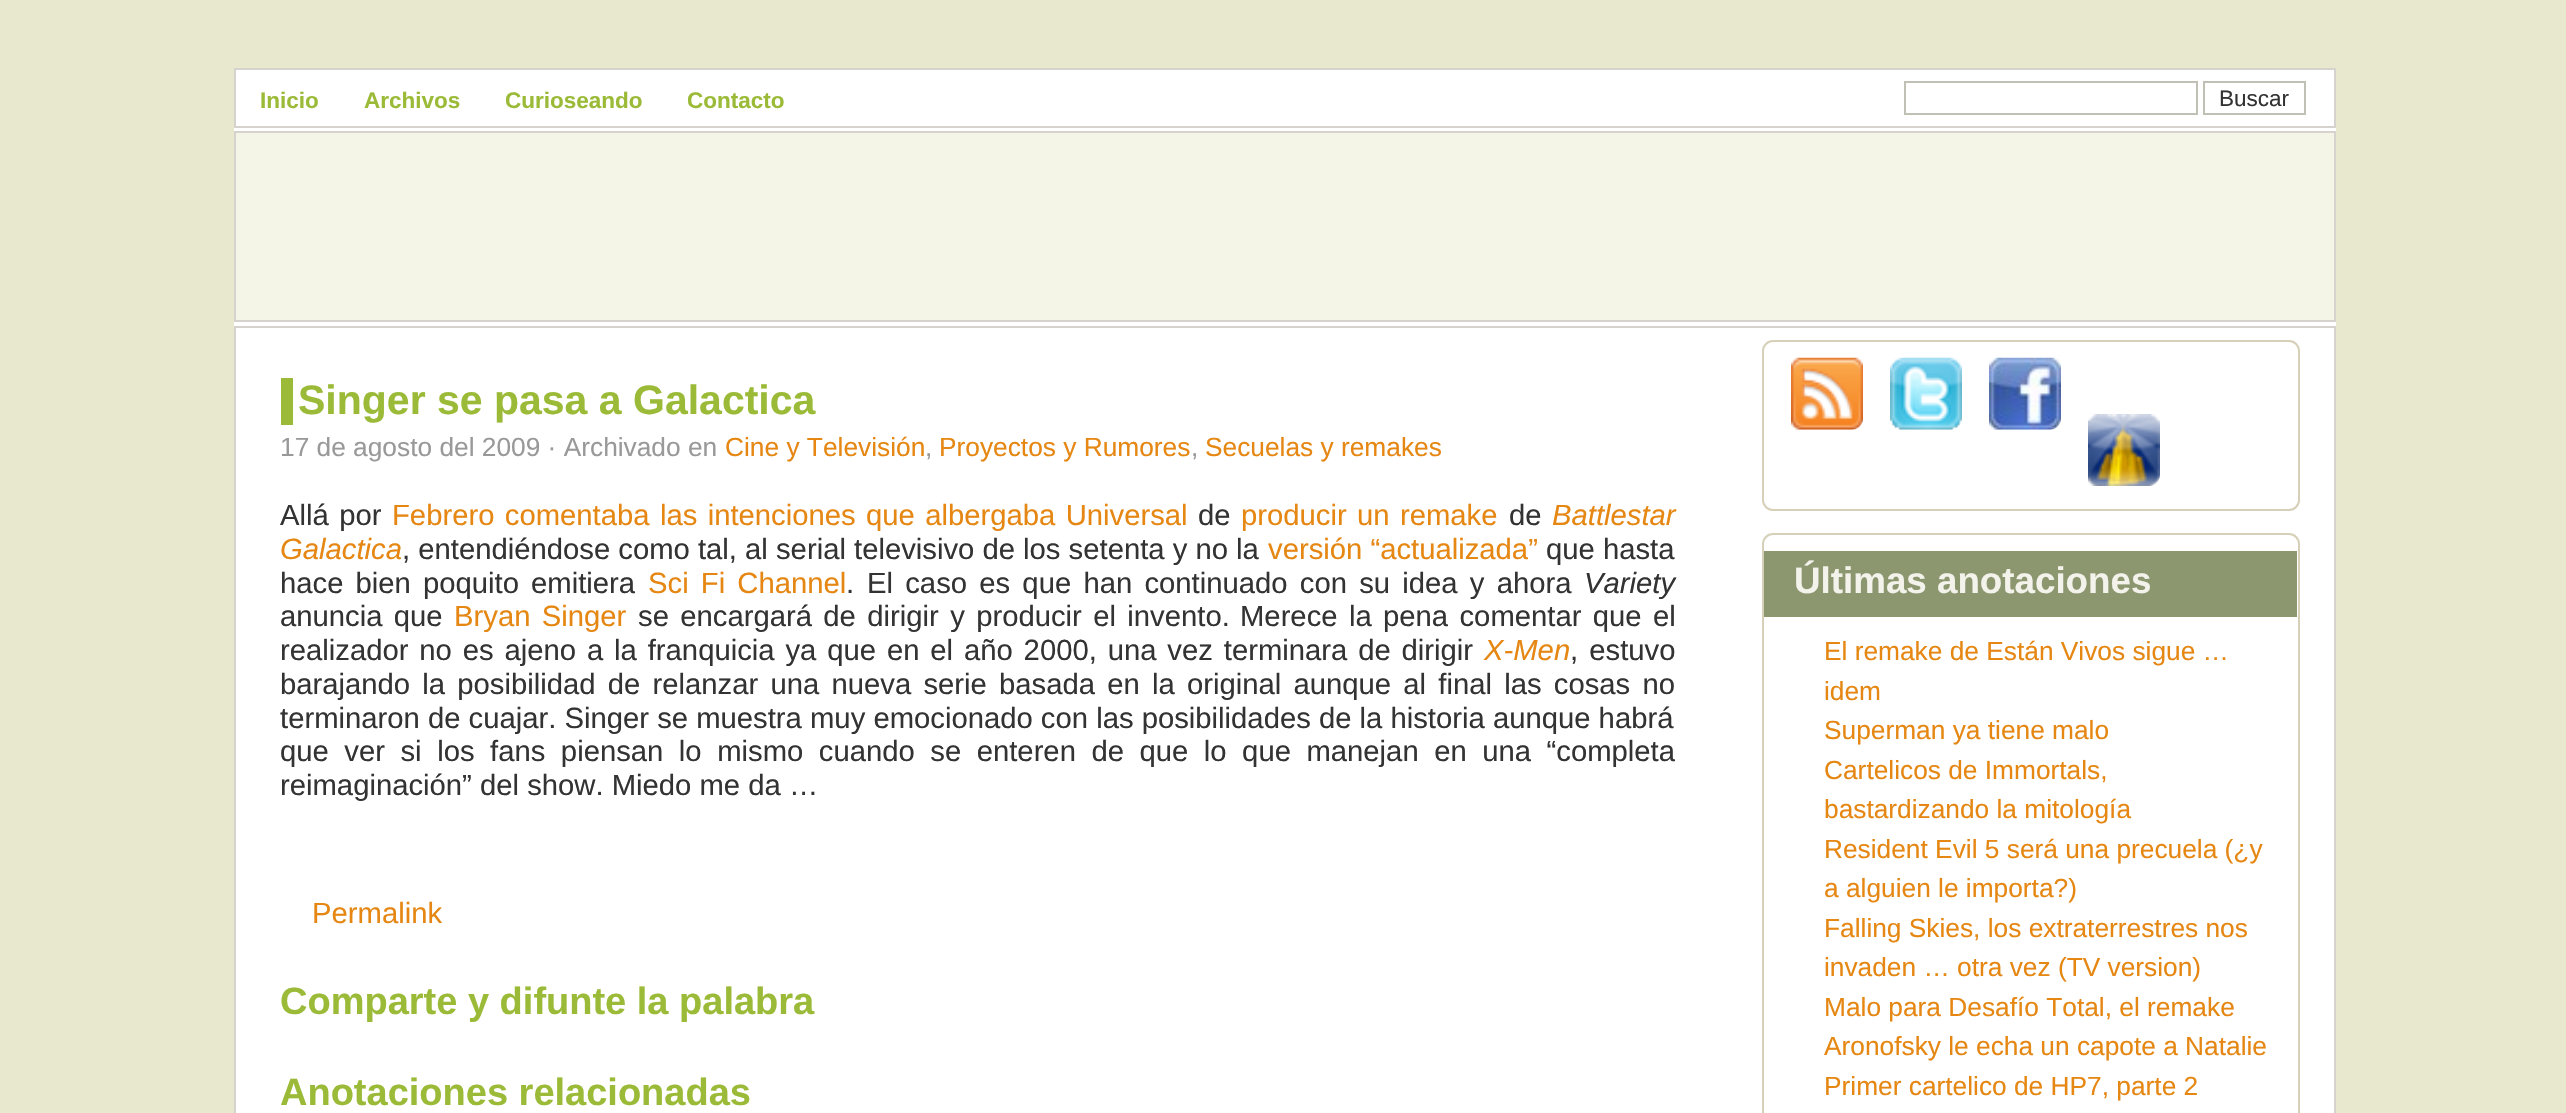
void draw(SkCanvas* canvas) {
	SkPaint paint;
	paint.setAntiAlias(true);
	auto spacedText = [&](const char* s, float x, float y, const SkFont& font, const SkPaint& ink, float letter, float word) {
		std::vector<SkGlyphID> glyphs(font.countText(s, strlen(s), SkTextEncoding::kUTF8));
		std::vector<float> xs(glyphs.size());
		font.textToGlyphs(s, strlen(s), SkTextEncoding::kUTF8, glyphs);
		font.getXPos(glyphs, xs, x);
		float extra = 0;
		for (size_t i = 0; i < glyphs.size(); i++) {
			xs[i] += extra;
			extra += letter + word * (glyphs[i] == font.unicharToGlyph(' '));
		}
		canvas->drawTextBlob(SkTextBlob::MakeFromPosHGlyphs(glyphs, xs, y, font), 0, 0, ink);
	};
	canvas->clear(0xffe8e8ce);
	paint.setColor(0xffffffff);
	canvas->drawRect(SkRect::MakeXYWH(234, 70, 2102, 1043), paint);
	paint.setStroke(true);
	paint.setStrokeWidth(2);
	paint.setColor(0xffd6d3ce);
	canvas->drawRect(SkRect::MakeXYWH(235, 69, 2100, 58), paint);
	SkFont f1(fontMgr->matchFamilyStyle("Liberation Sans", SkFontStyle::Bold()), 22.5);
	f1.setSubpixel(true);
	paint.setStroke(false);
	paint.setColor(0xff9bbb38);
	canvas->drawString("Inicio", 260, 108, f1, paint);
	canvas->drawString("Archivos", 364, 108, f1, paint);
	canvas->drawString("Curioseando", 505, 108, f1, paint);
	canvas->drawString("Contacto", 687, 108, f1, paint);
	paint.setStroke(true);
	paint.setColor(0xffc1c0b5);
	canvas->drawRect(SkRect::MakeXYWH(1905, 82, 292, 32), paint);
	canvas->drawRect(SkRect::MakeXYWH(2204, 82, 101, 32), paint);
	SkFont f2(fontMgr->matchFamilyStyle("Liberation Sans", SkFontStyle::Normal()), 22.5);
	f2.setSubpixel(true);
	paint.setStroke(false);
	paint.setColor(0xff333333);
	canvas->drawString("Buscar", 2219, 106, f2, paint);
	paint.setColor(0xfff5f5e7);
	canvas->drawRect(SkRect::MakeXYWH(235, 132, 2100, 189), paint);
	paint.setStroke(true);
	paint.setColor(0xffd6d3ce);
	canvas->drawRect(SkRect::MakeXYWH(235, 132, 2100, 189), paint);
	canvas->drawRect(SkRect::MakeXYWH(235, 327, 2100, 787), paint);
	paint.setStroke(false);
	paint.setColor(0xff9bbb38);
	canvas->drawRect(SkRect::MakeXYWH(281, 378, 12, 47), paint);
	SkFont f3(fontMgr->matchFamilyStyle("Liberation Sans", SkFontStyle::Bold()), 41);
	f3.setSubpixel(true);
	canvas->drawString("Singer se pasa a Galactica", 298, 414, f3, paint);
	SkFont f4(fontMgr->matchFamilyStyle("Liberation Sans", SkFontStyle::Normal()), 26.3);
	f4.setSubpixel(true);
	paint.setColor(0xff999999);
	canvas->drawString("17 de agosto del 2009 · Archivado en", 280, 456, f4, paint);
	paint.setColor(0xffe58712);
	canvas->drawString("Cine y Televisión", 725, 456, f4, paint);
	paint.setColor(0xff999999);
	canvas->drawString(",", 925, 456, f4, paint);
	paint.setColor(0xffe58712);
	canvas->drawString("Proyectos y Rumores", 939, 456, f4, paint);
	paint.setColor(0xff999999);
	canvas->drawString(",", 1191, 456, f4, paint);
	paint.setColor(0xffe58712);
	canvas->drawString("Secuelas y remakes", 1205, 456, f4, paint);
	SkFont f5(fontMgr->matchFamilyStyle("Liberation Sans", SkFontStyle::Normal()), 29.25);
	f5.setSubpixel(true);
	paint.setColor(0xff333333);
	spacedText("Allá por", 280, 525, f5, paint, 0, 2.25);
	paint.setColor(0xffe58712);
	spacedText("Febrero comentaba las intenciones que albergaba Universal", 392, 525, f5, paint, 0, 2.25);
	paint.setColor(0xff333333);
	canvas->drawString("de", 1198, 525, f5, paint);
	paint.setColor(0xffe58712);
	spacedText("producir un remake", 1241, 525, f5, paint, 0, 2.25);
	paint.setColor(0xff333333);
	canvas->drawString("de", 1509, 525, f5, paint);
	SkFont f6(fontMgr->matchFamilyStyle("Liberation Sans", SkFontStyle::Italic()), 29.25);
	f6.setSubpixel(true);
	paint.setColor(0xffe58712);
	canvas->drawString("Battlestar", 1552, 525, f6, paint);
	canvas->drawString("Galactica", 280, 559, f6, paint);
	paint.setColor(0xff333333);
	canvas->drawString(", entendiéndose como tal, al serial televisivo de los setenta y no la", 402, 559, f5, paint);
	paint.setColor(0xffe58712);
	canvas->drawString("versión “actualizada”", 1268, 559, f5, paint);
	paint.setColor(0xff333333);
	canvas->drawString("que hasta", 1546, 559, f5, paint);
	spacedText("hace bien poquito emitiera", 280, 593, f5, paint, 0, 4);
	paint.setColor(0xffe58712);
	spacedText("Sci Fi Channel", 648, 593, f5, paint, 0, 4);
	paint.setColor(0xff333333);
	canvas->drawString(".", 846, 593, f5, paint);
	spacedText("El caso es que han continuado con su idea y ahora", 867, 593, f5, paint, 0, 4.1);
	canvas->drawString("Variety", 1584, 593, f6, paint);
	spacedText("anuncia que", 280, 626, f5, paint, 0, 3.25);
	paint.setColor(0xffe58712);
	spacedText("Bryan Singer", 454, 626, f5, paint, 0, 3.25);
	paint.setColor(0xff333333);
	spacedText("se encargará de dirigir y producir el invento.", 638, 626, f5, paint, 0, 3.25);
	spacedText("Merece la pena comentar que el", 1240, 626, f5, paint, 0, 3.25);
	spacedText("realizador no es ajeno a la franquicia ya que en el año 2000, una vez terminara de dirigir", 280, 660, f5, paint, 0, 2.75);
	paint.setColor(0xffe58712);
	canvas->drawString("X-Men", 1484, 660, f6, paint);
	paint.setColor(0xff333333);
	spacedText(", estuvo", 1570, 660, f5, paint, 0, 3);
	spacedText("barajando la posibilidad de relanzar una nueva serie basada en la original aunque al final las cosas no", 280, 694, f5, paint, 0, 4.1);
	canvas->drawString("terminaron de cuajar. Singer se muestra muy emocionado con las posibilidades de la historia aunque habrá", 280, 728, f5, paint);
	spacedText("que ver si los fans piensan lo mismo cuando se enteren de que lo que manejan en una “completa", 280, 761, f5, paint, 0, 7.4);
	canvas->drawString("reimaginación” del show. Miedo me da …", 280, 795, f5, paint);
	paint.setColor(0xffe58712);
	canvas->drawString("Permalink", 312, 923, f5, paint);
	SkFont f7(fontMgr->matchFamilyStyle("Liberation Sans", SkFontStyle::Bold()), 38);
	f7.setSubpixel(true);
	paint.setColor(0xff9bbb38);
	canvas->drawString("Comparte y difunte la palabra", 280, 1014, f7, paint);
	canvas->drawString("Anotaciones relacionadas", 280, 1105, f7, paint);
	paint.setStroke(true);
	paint.setColor(0xffd7d0b9);
	canvas->drawRoundRect(SkRect::MakeXYWH(1763, 341, 536, 169), 10, 10, paint);
	canvas->drawImageRect(SkImages::DeferredFromEncodedData(SkData::MakeFromFileName("img1.png")), SkRect::MakeXYWH(1791, 357, 72, 73), SkSamplingOptions());
	canvas->drawImageRect(SkImages::DeferredFromEncodedData(SkData::MakeFromFileName("img2.png")), SkRect::MakeXYWH(1890, 357, 72, 73), SkSamplingOptions());
	canvas->drawImageRect(SkImages::DeferredFromEncodedData(SkData::MakeFromFileName("img3.png")), SkRect::MakeXYWH(1989, 357, 72, 73), SkSamplingOptions());
	canvas->drawImageRect(SkImages::DeferredFromEncodedData(SkData::MakeFromFileName("img4.png")), SkRect::MakeXYWH(2088, 414, 72, 72), SkSamplingOptions());
	canvas->drawRoundRect(SkRect::MakeXYWH(1763, 534, 536, 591), 10, 10, paint);
	paint.setStroke(false);
	paint.setColor(0xff8c966f);
	canvas->drawRect(SkRect::MakeXYWH(1764, 551, 533, 66), paint);
	SkFont f8(fontMgr->matchFamilyStyle("Liberation Sans", SkFontStyle::Bold()), 36.75);
	f8.setSubpixel(true);
	paint.setColor(0xfff3f3eb);
	canvas->drawString("Últimas anotaciones", 1794, 593, f8, paint);
	paint.setColor(0xffe58712);
	canvas->drawString("El remake de Están Vivos sigue …", 1824, 660, f4, paint);
	canvas->drawString("idem", 1824, 700, f4, paint);
	canvas->drawString("Superman ya tiene malo", 1824, 739, f4, paint);
	canvas->drawString("Cartelicos de Immortals,", 1824, 779, f4, paint);
	canvas->drawString("bastardizando la mitología", 1824, 818, f4, paint);
	canvas->drawString("Resident Evil 5 será una precuela (¿y", 1824, 858, f4, paint);
	canvas->drawString("a alguien le importa?)", 1824, 897, f4, paint);
	canvas->drawString("Falling Skies, los extraterrestres nos", 1824, 937, f4, paint);
	canvas->drawString("invaden … otra vez (TV version)", 1824, 976, f4, paint);
	canvas->drawString("Malo para Desafío Total, el remake", 1824, 1016, f4, paint);
	canvas->drawString("Aronofsky le echa un capote a Natalie", 1824, 1055, f4, paint);
	canvas->drawString("Primer cartelico de HP7, parte 2", 1824, 1095, f4, paint);
}
